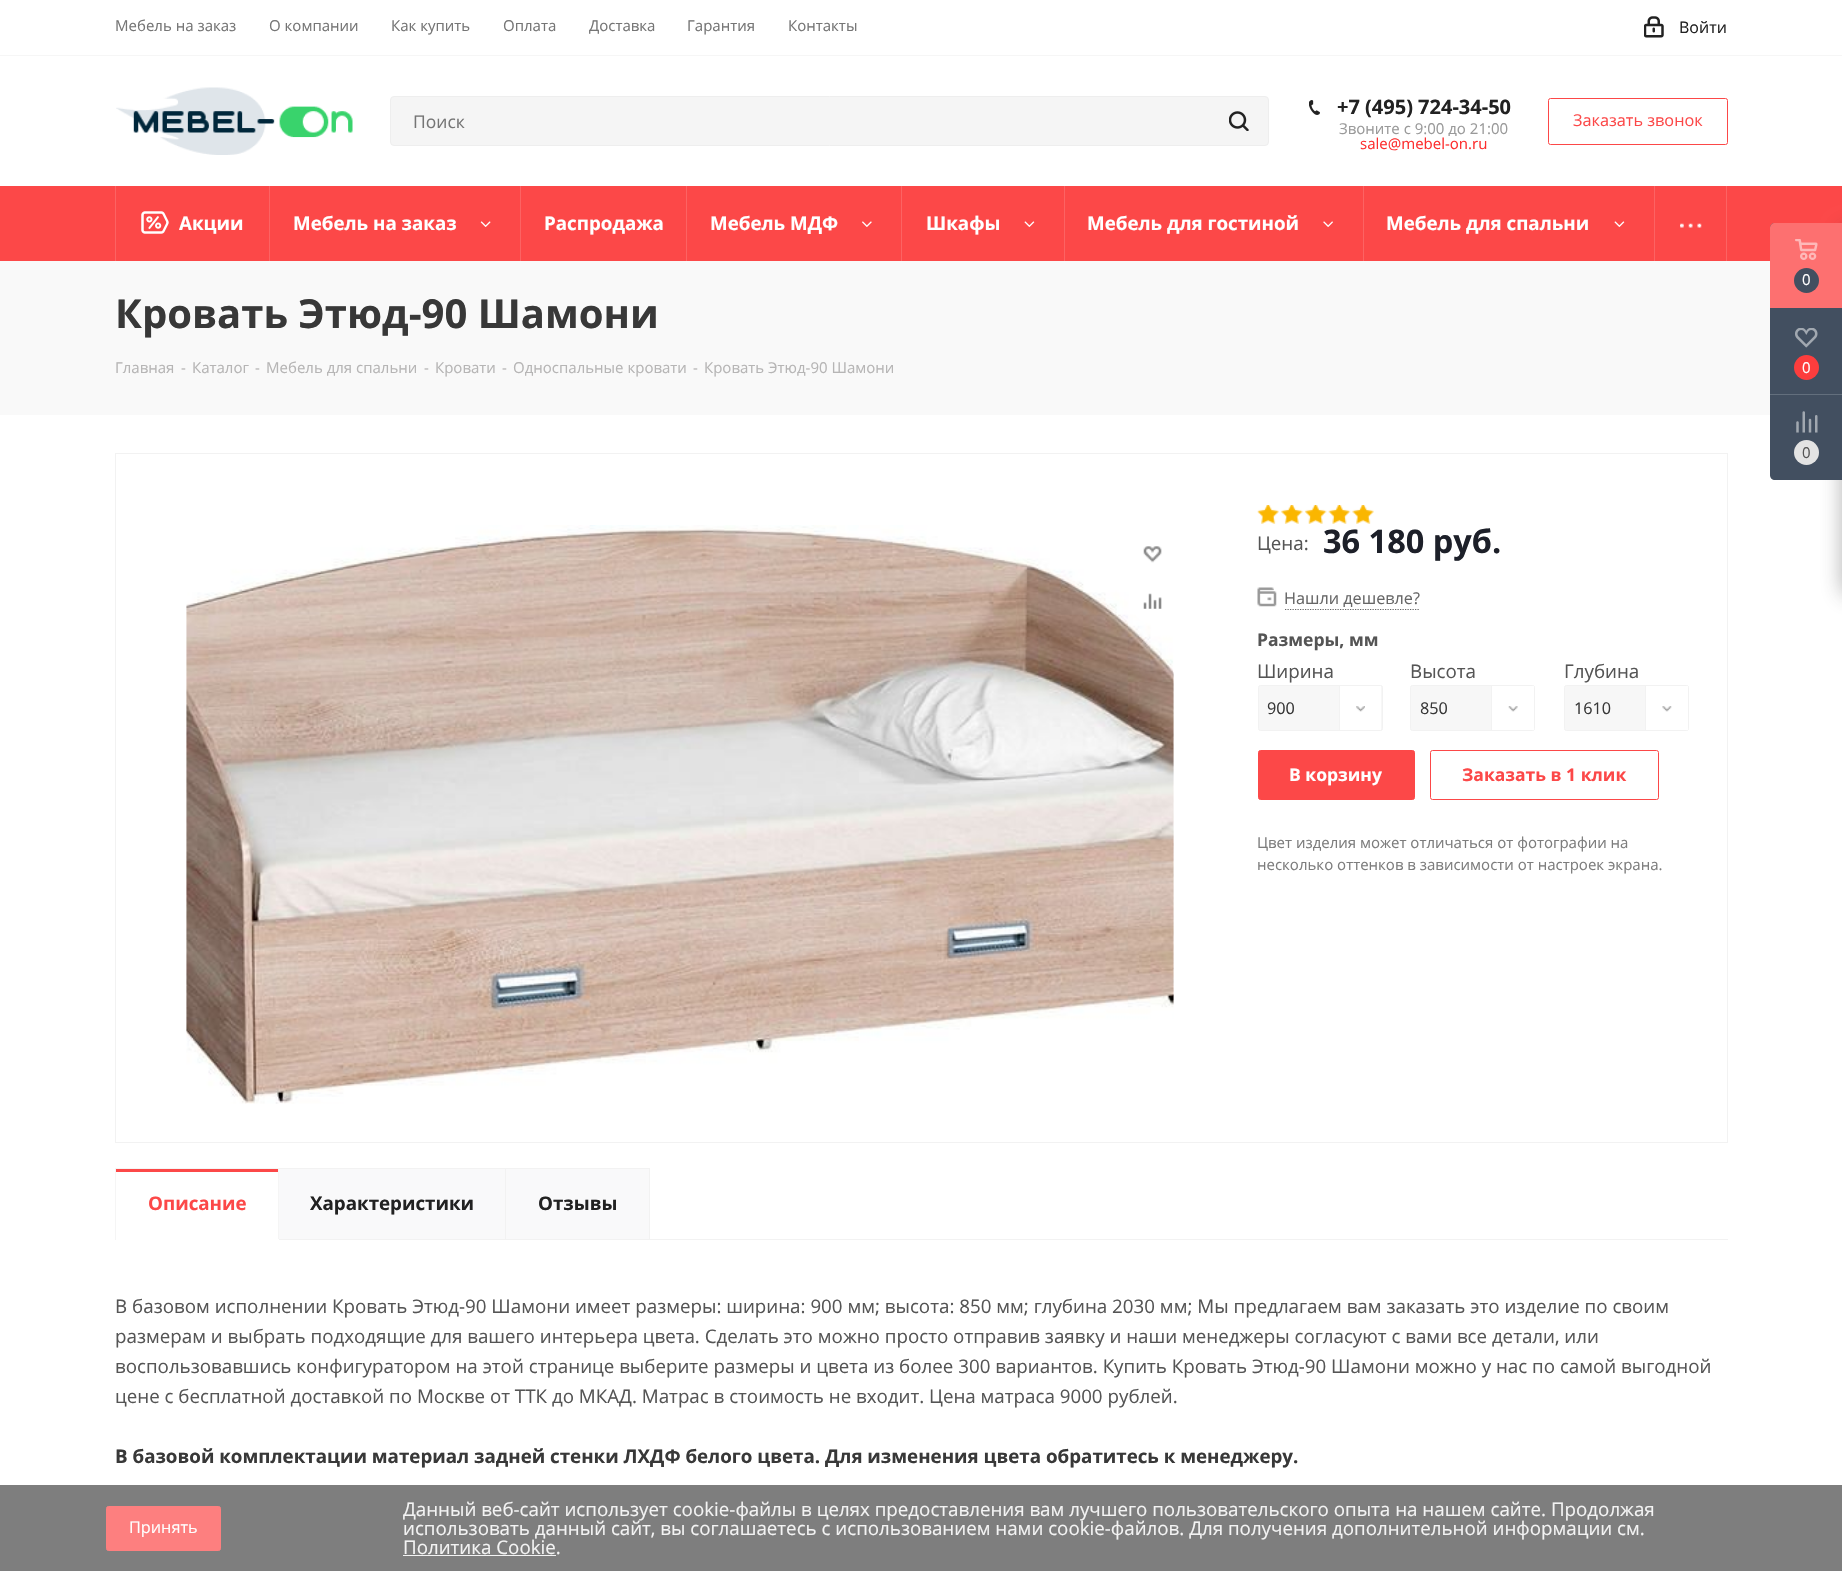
void draw(SkCanvas* canvas) {
	SkPaint paint;
	paint.setAntiAlias(true);
	auto svgPath = [&](const char* data, bool evenOdd = false) {
		SkPath result = *SkParsePath::FromSVGString(data);
		if (evenOdd) result.setFillType(SkPathFillType::kEvenOdd);
		return result;
	};
	canvas->clear(0xffffffff);
	paint.setColor(0xfff6f6f6);
	canvas->drawRect(SkRect::MakeXYWH(0, 55, 1842, 1), paint);
	SkFont f1(fontMgr->matchFamilyStyle("Open Sans", SkFontStyle::Normal()), 15);
	f1.setSubpixel(true);
	paint.setColor(0xff757575);
	canvas->drawString("Мебель на заказ", 115, 31, f1, paint);
	canvas->drawString("О компании", 269, 31, f1, paint);
	canvas->drawString("Как купить", 391, 31, f1, paint);
	canvas->drawString("Оплата", 503, 31, f1, paint);
	canvas->drawString("Доставка", 589, 31, f1, paint);
	canvas->drawString("Гарантия", 687, 31, f1, paint);
	canvas->drawString("Контакты", 788, 31, f1, paint);
	canvas->drawImageRect(SkImages::DeferredFromEncodedData(SkData::MakeFromFileName("img1.png")), SkRect::MakeXYWH(1644, 16, 20, 22), SkSamplingOptions());
	SkFont f2(fontMgr->matchFamilyStyle("Open Sans", SkFontStyle::Normal()), 16);
	f2.setSubpixel(true);
	paint.setColor(0xff222222);
	canvas->drawString("Войти", 1679, 33, f2, paint);
	canvas->drawImageRect(SkImages::DeferredFromEncodedData(SkData::MakeFromFileName("img2.png")), SkRect::MakeXYWH(116, 87, 237, 68), SkSamplingOptions());
	paint.setColor(0xfff5f5f5);
	canvas->drawRoundRect(SkRect::MakeXYWH(390.5, 96.5, 878, 49), 3.5, 3.5, paint);
	paint.setStroke(true);
	paint.setStrokeWidth(1);
	paint.setColor(0xffeeeeee);
	canvas->drawRoundRect(SkRect::MakeXYWH(390.5, 96.5, 878, 49), 3.5, 3.5, paint);
	SkFont f3(fontMgr->matchFamilyStyle("Open Sans", SkFontStyle::Normal()), 17.5);
	f3.setSubpixel(true);
	paint.setStroke(false);
	paint.setColor(0xff757575);
	canvas->drawString("Поиск", 413, 128, f3, paint);
	canvas->drawImageRect(SkImages::DeferredFromEncodedData(SkData::MakeFromFileName("img3.png")), SkRect::MakeXYWH(1229, 111, 20, 20), SkSamplingOptions());
	canvas->drawImageRect(SkImages::DeferredFromEncodedData(SkData::MakeFromFileName("img4.png")), SkRect::MakeXYWH(1309, 100, 11, 15), SkSamplingOptions());
	SkFont f4(fontMgr->matchFamilyStyle("Open Sans", SkFontStyle::Bold()), 20);
	f4.setSubpixel(true);
	paint.setColor(0xff222222);
	canvas->drawString("+7 (495) 724-34-50", 1337, 114, f4, paint);
	canvas->save();
	canvas->clipRect(SkRect::MakeXYWH(1338, 121, 172, 15));
	paint.setColor(0xff999999);
	canvas->drawString("Звоните с 9:00 до 21:00", 1339, 134, f1, paint);
	canvas->restore();
	paint.setColor(0xfffd2e2e);
	canvas->drawString("sale@mebel-on.ru", 1360, 149, f1, paint);
	paint.setStroke(true);
	paint.setColor(0xfffc4848);
	canvas->drawRoundRect(SkRect::MakeXYWH(1548.5, 98.5, 179, 46), 2, 2, paint);
	SkFont f5(fontMgr->matchFamilyStyle("Open Sans", SkFontStyle::Normal()), 16.25);
	f5.setSubpixel(true);
	paint.setStroke(false);
	canvas->drawString("Заказать звонок", 1573, 126, f5, paint);
	canvas->drawRect(SkRect::MakeXYWH(0, 186, 1842, 75), paint);
	paint.setColor(0xfffc6363);
	canvas->drawRect(SkRect::MakeXYWH(115, 186, 1, 75), paint);
	canvas->drawRect(SkRect::MakeXYWH(269, 186, 1, 75), paint);
	canvas->drawImageRect(SkImages::DeferredFromEncodedData(SkData::MakeFromFileName("img5.png")), SkRect::MakeXYWH(141, 211, 28, 23), SkSamplingOptions());
	SkFont f6(fontMgr->matchFamilyStyle("Open Sans", SkFontStyle::Bold()), 18.75);
	f6.setSubpixel(true);
	paint.setColor(0xffffffff);
	canvas->drawString("Акции", 179, 230, f6, paint);
	paint.setColor(0xfffc6363);
	canvas->drawRect(SkRect::MakeXYWH(520, 186, 1, 75), paint);
	paint.setColor(0xffffffff);
	canvas->drawString("Мебель на заказ", 293, 230, f6, paint);
	canvas->drawImageRect(SkImages::DeferredFromEncodedData(SkData::MakeFromFileName("img6.png")), SkRect::MakeXYWH(480, 221, 11, 6), SkSamplingOptions());
	paint.setColor(0xfffc6363);
	canvas->drawRect(SkRect::MakeXYWH(686, 186, 1, 75), paint);
	paint.setColor(0xffffffff);
	canvas->drawString("Распродажа", 544, 230, f6, paint);
	paint.setColor(0xfffc6363);
	canvas->drawRect(SkRect::MakeXYWH(901, 186, 1, 75), paint);
	paint.setColor(0xffffffff);
	canvas->drawString("Мебель МДФ", 710, 230, f6, paint);
	canvas->drawImageRect(SkImages::DeferredFromEncodedData(SkData::MakeFromFileName("img7.png")), SkRect::MakeXYWH(862, 221, 10, 6), SkSamplingOptions());
	paint.setColor(0xfffc6363);
	canvas->drawRect(SkRect::MakeXYWH(1064, 186, 1, 75), paint);
	paint.setColor(0xffffffff);
	canvas->drawString("Шкафы", 926, 230, f6, paint);
	canvas->drawImageRect(SkImages::DeferredFromEncodedData(SkData::MakeFromFileName("img8.png")), SkRect::MakeXYWH(1024, 221, 11, 6), SkSamplingOptions());
	paint.setColor(0xfffc6363);
	canvas->drawRect(SkRect::MakeXYWH(1363, 186, 1, 75), paint);
	paint.setColor(0xffffffff);
	canvas->drawString("Мебель для гостиной", 1087, 230, f6, paint);
	canvas->drawImageRect(SkImages::DeferredFromEncodedData(SkData::MakeFromFileName("img9.png")), SkRect::MakeXYWH(1323, 221, 10, 6), SkSamplingOptions());
	paint.setColor(0xfffc6363);
	canvas->drawRect(SkRect::MakeXYWH(1654, 186, 1, 75), paint);
	paint.setColor(0xffffffff);
	canvas->drawString("Мебель для спальни", 1386, 230, f6, paint);
	canvas->drawImageRect(SkImages::DeferredFromEncodedData(SkData::MakeFromFileName("img8.png")), SkRect::MakeXYWH(1614, 221, 11, 6), SkSamplingOptions());
	paint.setColor(0xfffc6363);
	canvas->drawRect(SkRect::MakeXYWH(1726, 186, 1, 75), paint);
	canvas->drawImageRect(SkImages::DeferredFromEncodedData(SkData::MakeFromFileName("img10.png")), SkRect::MakeXYWH(1680, 223, 22, 5), SkSamplingOptions());
	paint.setColor(0xfff9f9f9);
	canvas->drawRect(SkRect::MakeXYWH(0, 261, 1770, 154), paint);
	SkFont f7(fontMgr->matchFamilyStyle("Open Sans", SkFontStyle::Bold()), 40);
	f7.setSubpixel(true);
	paint.setColor(0xff383838);
	canvas->drawString("Кровать Этюд-90 Шамони", 115, 328, f7, paint);
	paint.setColor(0xffb6b5b5);
	canvas->drawString("Главная", 115, 373, f1, paint);
	canvas->drawString("-", 181, 373, f1, paint);
	canvas->drawString("Каталог", 192, 373, f1, paint);
	canvas->drawString("-", 255, 373, f1, paint);
	canvas->drawString("Мебель для спальни", 266, 373, f1, paint);
	canvas->drawString("-", 424, 373, f1, paint);
	canvas->drawString("Кровати", 435, 373, f1, paint);
	canvas->drawString("-", 502, 373, f1, paint);
	canvas->drawString("Односпальные кровати", 513, 373, f1, paint);
	canvas->drawString("-", 693, 373, f1, paint);
	canvas->drawString("Кровать Этюд-90 Шамони", 704, 373, f1, paint);
	paint.setStroke(true);
	paint.setColor(0xfff2f2f2);
	canvas->drawRect(SkRect::MakeXYWH(115.5, 453.5, 1612, 689), paint);
	canvas->drawImageRect(SkImages::DeferredFromEncodedData(SkData::MakeFromFileName("img11.png")), SkRect::MakeXYWH(186, 525, 988, 579), SkSamplingOptions());
	canvas->drawImageRect(SkImages::DeferredFromEncodedData(SkData::MakeFromFileName("img12.png")), SkRect::MakeXYWH(1143, 546, 19, 17), SkSamplingOptions());
	paint.setStroke(false);
	paint.setColor(0xffffffff);
	canvas->drawCircle(1152.5, 602.5, 21.5, paint);
	canvas->drawImageRect(SkImages::DeferredFromEncodedData(SkData::MakeFromFileName("img13.png")), SkRect::MakeXYWH(1143, 593, 19, 16), SkSamplingOptions());
	canvas->drawImageRect(SkImages::DeferredFromEncodedData(SkData::MakeFromFileName("img14.png")), SkRect::MakeXYWH(1257, 505, 22, 19), SkSamplingOptions());
	canvas->drawImageRect(SkImages::DeferredFromEncodedData(SkData::MakeFromFileName("img15.png")), SkRect::MakeXYWH(1281, 505, 22, 19), SkSamplingOptions());
	canvas->drawImageRect(SkImages::DeferredFromEncodedData(SkData::MakeFromFileName("img16.png")), SkRect::MakeXYWH(1305, 505, 22, 19), SkSamplingOptions());
	canvas->drawImageRect(SkImages::DeferredFromEncodedData(SkData::MakeFromFileName("img17.png")), SkRect::MakeXYWH(1328, 505, 23, 19), SkSamplingOptions());
	canvas->drawImageRect(SkImages::DeferredFromEncodedData(SkData::MakeFromFileName("img18.png")), SkRect::MakeXYWH(1352, 505, 22, 19), SkSamplingOptions());
	SkFont f8(fontMgr->matchFamilyStyle("Open Sans", SkFontStyle::Normal()), 18.75);
	f8.setSubpixel(true);
	paint.setColor(0xff555555);
	canvas->drawString("Цена:", 1257, 550, f8, paint);
	SkFont f9(fontMgr->matchFamilyStyle("Open Sans", SkFontStyle::Bold()), 32.5);
	f9.setSubpixel(true);
	paint.setColor(0xff1d2029);
	canvas->drawString("36 180 руб.", 1323, 553, f9, paint);
	canvas->drawImageRect(SkImages::DeferredFromEncodedData(SkData::MakeFromFileName("img19.png")), SkRect::MakeXYWH(1257, 587, 20, 20), SkSamplingOptions());
	paint.setColor(0xff666666);
	canvas->drawString("Нашли дешевле?", 1284, 604, f5, paint);
	paint.setStroke(true);
	paint.setStrokeWidth(1.2);
	paint.setPathEffect(SkDashPathEffect::Make({{1.25f, 1.25f}}, 0));
	canvas->drawPath(svgPath("M1285 609.5H1420"), paint);
	paint.setPathEffect(nullptr);
	SkFont f10(fontMgr->matchFamilyStyle("Open Sans", SkFontStyle::Bold()), 17.5);
	f10.setSubpixel(true);
	paint.setStroke(false);
	paint.setColor(0xff555555);
	canvas->drawString("Размеры, мм", 1257, 646, f10, paint);
	canvas->drawString("Ширина", 1257, 678, f8, paint);
	paint.setColor(0xfff7f7f7);
	canvas->drawRoundRect(SkRect::MakeXYWH(1258.5, 685.5, 124, 45), 2, 2, paint);
	paint.setStroke(true);
	paint.setStrokeWidth(1);
	paint.setColor(0xfff2f2f2);
	canvas->drawRoundRect(SkRect::MakeXYWH(1258.5, 685.5, 124, 45), 2, 2, paint);
	paint.setStroke(false);
	paint.setColor(0xff383838);
	canvas->drawString("900", 1267, 714, f5, paint);
	paint.setColor(0xffffffff);
	canvas->drawRect(SkRect::MakeXYWH(1340, 686, 41, 44), paint);
	paint.setColor(0xfff2f2f2);
	canvas->drawRect(SkRect::MakeXYWH(1339, 686, 1, 44), paint);
	canvas->drawImageRect(SkImages::DeferredFromEncodedData(SkData::MakeFromFileName("img20.png")), SkRect::MakeXYWH(1356, 706, 9, 6), SkSamplingOptions());
	paint.setColor(0xff555555);
	canvas->drawString("Высота", 1410, 678, f8, paint);
	paint.setColor(0xfff7f7f7);
	canvas->drawRoundRect(SkRect::MakeXYWH(1410.5, 685.5, 124, 45), 2, 2, paint);
	paint.setStroke(true);
	paint.setColor(0xfff2f2f2);
	canvas->drawRoundRect(SkRect::MakeXYWH(1410.5, 685.5, 124, 45), 2, 2, paint);
	paint.setStroke(false);
	paint.setColor(0xff383838);
	canvas->drawString("850", 1420, 714, f5, paint);
	paint.setColor(0xffffffff);
	canvas->drawRect(SkRect::MakeXYWH(1492, 686, 42, 44), paint);
	paint.setColor(0xfff2f2f2);
	canvas->drawRect(SkRect::MakeXYWH(1491, 686, 1, 44), paint);
	canvas->drawImageRect(SkImages::DeferredFromEncodedData(SkData::MakeFromFileName("img21.png")), SkRect::MakeXYWH(1508, 706, 10, 6), SkSamplingOptions());
	paint.setColor(0xff555555);
	canvas->drawString("Глубина", 1564, 678, f8, paint);
	paint.setColor(0xfff7f7f7);
	canvas->drawRoundRect(SkRect::MakeXYWH(1564.5, 685.5, 124, 45), 2, 2, paint);
	paint.setStroke(true);
	paint.setColor(0xfff2f2f2);
	canvas->drawRoundRect(SkRect::MakeXYWH(1564.5, 685.5, 124, 45), 2, 2, paint);
	paint.setStroke(false);
	paint.setColor(0xff383838);
	canvas->drawString("1610", 1574, 714, f5, paint);
	paint.setColor(0xffffffff);
	canvas->drawRect(SkRect::MakeXYWH(1646, 686, 42, 44), paint);
	paint.setColor(0xfff2f2f2);
	canvas->drawRect(SkRect::MakeXYWH(1645, 686, 1, 44), paint);
	canvas->drawImageRect(SkImages::DeferredFromEncodedData(SkData::MakeFromFileName("img22.png")), SkRect::MakeXYWH(1662, 706, 10, 6), SkSamplingOptions());
	paint.setColor(0xfffc4848);
	canvas->drawRoundRect(SkRect::MakeXYWH(1258.5, 750.5, 156, 49), 2, 2, paint);
	paint.setStroke(true);
	canvas->drawRoundRect(SkRect::MakeXYWH(1258.5, 750.5, 156, 49), 2, 2, paint);
	paint.setStroke(false);
	paint.setColor(0xffffffff);
	canvas->drawString("В корзину", 1289, 781, f10, paint);
	paint.setStroke(true);
	paint.setColor(0xfffc4848);
	canvas->drawRoundRect(SkRect::MakeXYWH(1430.5, 750.5, 228, 49), 2, 2, paint);
	paint.setStroke(false);
	canvas->drawString("Заказать в 1 клик", 1462, 781, f10, paint);
	paint.setColor(0xff7d7d7d);
	canvas->drawString("Цвет изделия может отличаться от фотографии на", 1257, 848, f1, paint);
	canvas->drawString("несколько оттенков в зависимости от настроек экрана.", 1257, 870, f1, paint);
	paint.setColor(0xfff2f2f2);
	canvas->drawRect(SkRect::MakeXYWH(650, 1239, 1078, 1), paint);
	paint.setColor(0xfff9f9fa);
	canvas->drawRect(SkRect::MakeXYWH(278.5, 1168.5, 227, 71), paint);
	paint.setStroke(true);
	paint.setColor(0xfff2f2f2);
	canvas->drawRect(SkRect::MakeXYWH(278.5, 1168.5, 227, 71), paint);
	paint.setStroke(false);
	paint.setColor(0xfff5f5f5);
	canvas->drawRect(SkRect::MakeXYWH(115, 1168, 164, 1), paint);
	canvas->drawRect(SkRect::MakeXYWH(278, 1168, 1, 72), paint);
	paint.setColor(0xffffffff);
	canvas->drawRect(SkRect::MakeXYWH(278, 1239, 1, 1), paint);
	paint.setColor(0xfff5f5f5);
	canvas->drawRect(SkRect::MakeXYWH(115, 1168, 1, 72), paint);
	paint.setColor(0xfffc4848);
	canvas->drawRect(SkRect::MakeXYWH(116, 1169, 162, 3), paint);
	canvas->drawString("Описание", 148, 1210, f6, paint);
	paint.setColor(0xff222222);
	canvas->drawString("Характеристики", 310, 1210, f6, paint);
	paint.setColor(0xfff9f9fa);
	canvas->drawRect(SkRect::MakeXYWH(505.5, 1168.5, 144, 71), paint);
	paint.setStroke(true);
	paint.setColor(0xfff2f2f2);
	canvas->drawRect(SkRect::MakeXYWH(505.5, 1168.5, 144, 71), paint);
	paint.setStroke(false);
	paint.setColor(0xff222222);
	canvas->drawString("Отзывы", 538, 1210, f6, paint);
	paint.setColor(0xff555555);
	canvas->drawString("В базовом исполнении Кровать Этюд-90 Шамони имеет размеры: ширина: 900 мм; высота: 850 мм; глубина 2030 мм; Мы предлагаем вам заказать это изделие по своим", 115, 1313, f8, paint);
	canvas->drawString("размерам и выбрать подходящие для вашего интерьера цвета. Сделать это можно просто отправив заявку и наши менеджеры согласуют с вами все детали, или", 115, 1343, f8, paint);
	canvas->drawString("воспользовавшись конфигуратором на этой странице выберите размеры и цвета из более 300 вариантов. Купить Кровать Этюд-90 Шамони можно у нас по самой выгодной", 115, 1373, f8, paint);
	canvas->drawString("цене с бесплатной доставкой по Москве от ТТК до МКАД. Матрас в стоимость не входит. Цена матраса 9000 рублей.", 115, 1403, f8, paint);
	paint.setColor(0xff383838);
	canvas->drawString("В базовой комплектации материал задней стенки ЛХДФ белого цвета. Для изменения цвета обратитесь к менеджеру.", 115, 1463, f6, paint);
	paint.setColor(0x662c2c2c);
	paint.setMaskFilter(SkMaskFilter::MakeBlur(kNormal_SkBlurStyle, 11));
	canvas->drawRoundRect(SkRect::MakeXYWH(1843, 230, 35, 364), 2.5, 2.5, paint);
	paint.setMaskFilter(nullptr);
	paint.setColor(0xff424f60);
	canvas->drawPath(svgPath("M1775 223H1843V480H1775C1772 480 1770 478 1770 475V228C1770 225 1772 223 1775 223Z"), paint);
	paint.setColor(0xfffd7070);
	canvas->drawPath(svgPath("M1775 223H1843V308H1770V228C1770 225 1772 223 1775 223Z"), paint);
	canvas->drawImageRect(SkImages::DeferredFromEncodedData(SkData::MakeFromFileName("img23.png")), SkRect::MakeXYWH(1795, 239, 23, 21), SkSamplingOptions());
	paint.setColor(0xff424f60);
	canvas->drawCircle(1806.5, 280.5, 12.5, paint);
	paint.setColor(0xffffffff);
	canvas->drawString("0", 1802, 285, f1, paint);
	canvas->drawImageRect(SkImages::DeferredFromEncodedData(SkData::MakeFromFileName("img24.png")), SkRect::MakeXYWH(1795, 328, 23, 20), SkSamplingOptions());
	paint.setColor(0xfffd3d3d);
	canvas->drawCircle(1806.5, 367.5, 12.5, paint);
	paint.setColor(0xffffffff);
	canvas->drawString("0", 1802, 373, f1, paint);
	paint.setColor(0xff636f7d);
	canvas->drawRect(SkRect::MakeXYWH(1770, 394, 72, 1), paint);
	canvas->drawImageRect(SkImages::DeferredFromEncodedData(SkData::MakeFromFileName("img25.png")), SkRect::MakeXYWH(1796, 411, 22, 22), SkSamplingOptions());
	paint.setColor(0xffe3e3e3);
	canvas->drawCircle(1806.5, 452.5, 12.5, paint);
	paint.setColor(0xff555555);
	canvas->drawString("0", 1802, 458, f1, paint);
	paint.setColor(0xff7e7e7e);
	canvas->drawRect(SkRect::MakeXYWH(0, 1485, 1842, 86), paint);
	paint.setColor(0xfffd7f7f);
	canvas->drawRoundRect(SkRect::MakeXYWH(106.5, 1506.5, 114, 44), 2, 2, paint);
	paint.setStroke(true);
	canvas->drawRoundRect(SkRect::MakeXYWH(106.5, 1506.5, 114, 44), 2, 2, paint);
	paint.setStroke(false);
	paint.setColor(0xffffffff);
	canvas->drawString("Принять", 129, 1533, f5, paint);
	paint.setColor(0xfff3f3f3);
	canvas->drawString("Данный веб-сайт использует cookie-файлы в целях предоставления вам лучшего пользовательского опыта на нашем сайте. Продолжая", 403, 1516, f8, paint);
	canvas->drawString("использовать данный сайт, вы соглашаетесь с использованием нами cookie-файлов. Для получения дополнительной информации см.", 403, 1535, f8, paint);
	canvas->drawString("Политика Cookie.", 403, 1554, f8, paint);
	canvas->drawRect(SkRect::MakeXYWH(403, 1555, 153, 1), paint);
}
